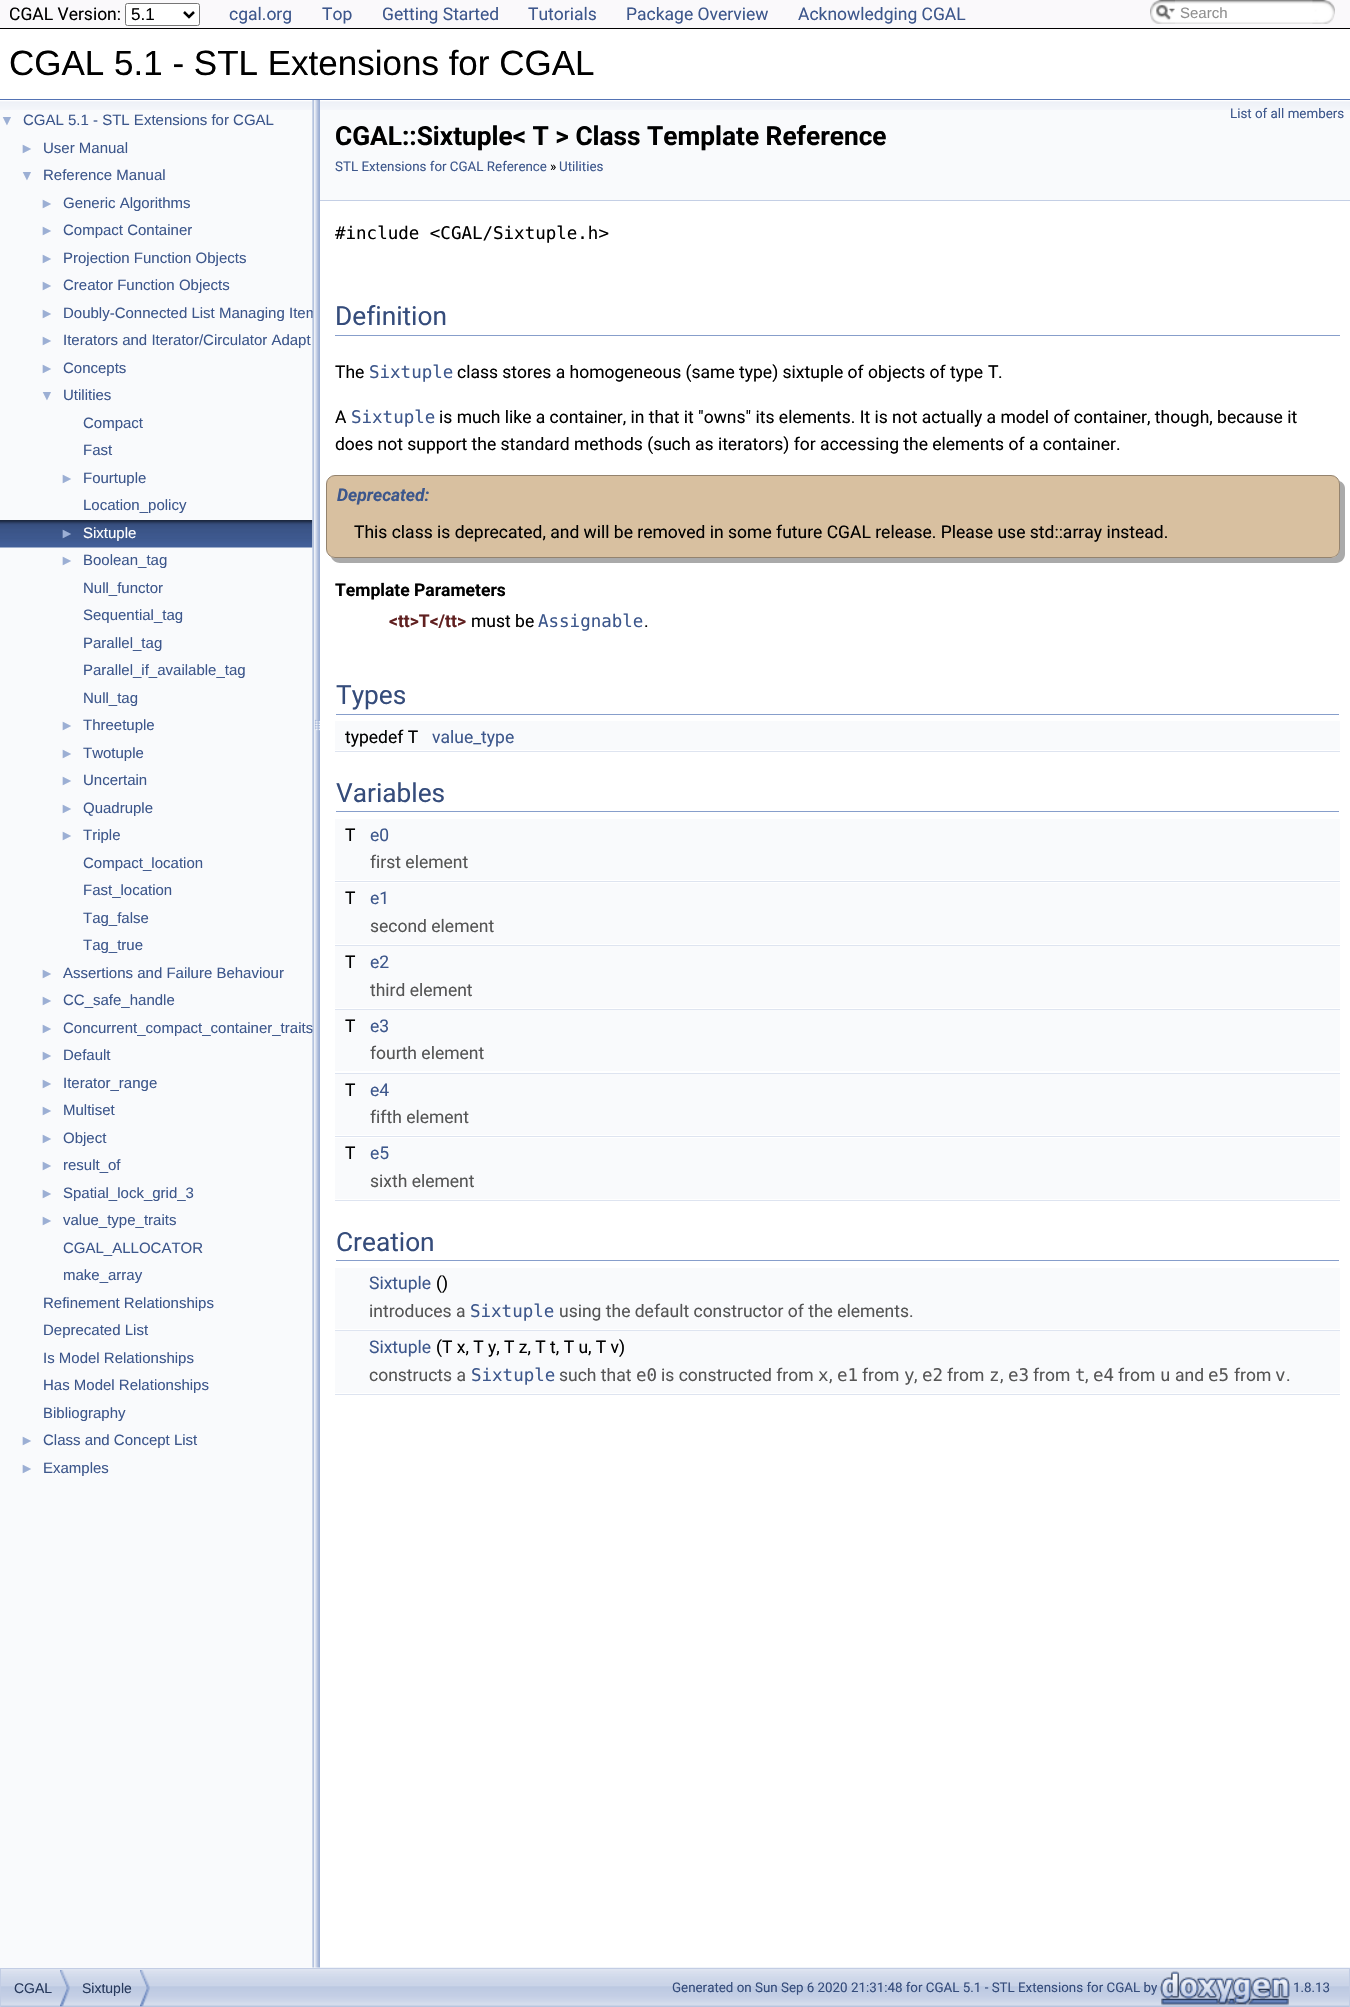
void draw(SkCanvas* canvas) {
	SkPaint paint;
	paint.setAntiAlias(true);
	auto svgPath = [&](const char* data, bool evenOdd = false) {
		SkPath result = *SkParsePath::FromSVGString(data);
		if (evenOdd) result.setFillType(SkPathFillType::kEvenOdd);
		return result;
	};
	canvas->clear(0xffffffff);
	paint.setColor(0xfffaf9fb);
	canvas->drawRect(SkRect::MakeXYWH(0, 0, 1350, 28), paint);
	paint.setColor(0xff000000);
	canvas->drawRect(SkRect::MakeXYWH(0, 28, 1350, 1), paint);
	SkFont f1(fontMgr->matchFamilyStyle("Roboto", SkFontStyle::Normal()), 17.5);
	f1.setSubpixel(true);
	canvas->drawString("CGAL Version:", 9, 20, f1, paint);
	paint.setColor(0xffffffff);
	canvas->drawRoundRect(SkRect::MakeXYWH(125.5, 3.5, 74, 22), 2, 2, paint);
	paint.setStroke(true);
	paint.setStrokeWidth(1);
	paint.setColor(0xff767676);
	canvas->drawRoundRect(SkRect::MakeXYWH(125.5, 3.5, 74, 22), 2, 2, paint);
	paint.setStrokeWidth(2.5);
	paint.setColor(0xff000000);
	canvas->drawPath(svgPath("M184 12L189 17L194 12"), paint);
	SkFont f2(fontMgr->matchFamilyStyle("Liberation Sans", SkFontStyle::Normal()), 17);
	f2.setSubpixel(true);
	paint.setStroke(false);
	canvas->drawString("5.1", 131, 20, f2, paint);
	paint.setColor(0xff3d578c);
	canvas->drawString("cgal.org", 229, 20, f1, paint);
	canvas->drawString("Top", 322, 20, f1, paint);
	canvas->drawString("Getting Started", 382, 20, f1, paint);
	canvas->drawString("Tutorials", 528, 20, f1, paint);
	canvas->drawString("Package Overview", 626, 20, f1, paint);
	canvas->drawString("Acknowledging CGAL", 798, 20, f1, paint);
	canvas->drawImageRect(SkImages::DeferredFromEncodedData(SkData::MakeFromFileName("img1.png")), SkRect::MakeXYWH(1150, 0, 25, 24), SkSamplingOptions());
	canvas->drawImageRect(SkImages::DeferredFromEncodedData(SkData::MakeFromFileName("img2.png")), SkRect::MakeXYWH(1156, 4, 19, 16), SkSamplingOptions());
	canvas->drawImageRect(SkImages::DeferredFromEncodedData(SkData::MakeFromFileName("img3.png")), SkRect::MakeXYWH(1175, 0, 147, 24), SkSamplingOptions());
	SkFont f3(fontMgr->matchFamilyStyle("Liberation Sans", SkFontStyle::Normal()), 15);
	f3.setSubpixel(true);
	paint.setColor(0xff909090);
	canvas->drawString("Search", 1180, 18, f3, paint);
	canvas->drawImageRect(SkImages::DeferredFromEncodedData(SkData::MakeFromFileName("img4.png")), SkRect::MakeXYWH(1312, 0, 23, 24), SkSamplingOptions());
	paint.setColor(0xff5373b4);
	canvas->drawRect(SkRect::MakeXYWH(0, 99, 1350, 1), paint);
	SkFont f4(fontMgr->matchFamilyStyle("Liberation Sans", SkFontStyle::Normal()), 35);
	f4.setSubpixel(true);
	paint.setColor(0xff000000);
	canvas->drawString("CGAL 5.1 - STL Extensions for CGAL", 9, 75, f4, paint);
	canvas->drawImageRect(SkImages::DeferredFromEncodedData(SkData::MakeFromFileName("img9.png")), SkRect::MakeXYWH(1, 1967, 1349, 40), SkSamplingOptions());
	paint.setColor(0xfff9fafc);
	canvas->drawRect(SkRect::MakeXYWH(0, 100, 313, 1868), paint);
	canvas->drawImageRect(SkImages::DeferredFromEncodedData(SkData::MakeFromFileName("img5.png")), SkRect::MakeXYWH(0, 100, 313, 10), SkSamplingOptions());
	SkFont f5(fontMgr->matchFamilyStyle("Liberation Sans", SkFontStyle::Normal()), 14);
	f5.setSubpixel(true);
	paint.setColor(0xff9cafd4);
	canvas->drawString("▼", 0, 125, f5, paint);
	paint.setColor(0xff3d578c);
	canvas->drawString("CGAL 5.1 - STL Extensions for CGAL", 23, 125, f3, paint);
	paint.setColor(0xff9cafd4);
	canvas->drawString("►", 20, 153, f5, paint);
	paint.setColor(0xff3d578c);
	canvas->drawString("User Manual", 43, 153, f3, paint);
	paint.setColor(0xff9cafd4);
	canvas->drawString("▼", 20, 180, f5, paint);
	paint.setColor(0xff3d578c);
	canvas->drawString("Reference Manual", 43, 180, f3, paint);
	paint.setColor(0xff9cafd4);
	canvas->drawString("►", 40, 208, f5, paint);
	paint.setColor(0xff3d578c);
	canvas->drawString("Generic Algorithms", 63, 208, f3, paint);
	paint.setColor(0xff9cafd4);
	canvas->drawString("►", 40, 235, f5, paint);
	paint.setColor(0xff3d578c);
	canvas->drawString("Compact Container", 63, 235, f3, paint);
	paint.setColor(0xff9cafd4);
	canvas->drawString("►", 40, 263, f5, paint);
	paint.setColor(0xff3d578c);
	canvas->drawString("Projection Function Objects", 63, 263, f3, paint);
	paint.setColor(0xff9cafd4);
	canvas->drawString("►", 40, 290, f5, paint);
	paint.setColor(0xff3d578c);
	canvas->drawString("Creator Function Objects", 63, 290, f3, paint);
	paint.setColor(0xff9cafd4);
	canvas->drawString("►", 40, 318, f5, paint);
	paint.setColor(0xff3d578c);
	canvas->drawString("Doubly-Connected List Managing Item", 63, 318, f3, paint);
	paint.setColor(0xff9cafd4);
	canvas->drawString("►", 40, 345, f5, paint);
	paint.setColor(0xff3d578c);
	canvas->drawString("Iterators and Iterator/Circulator Adapt", 63, 345, f3, paint);
	paint.setColor(0xff9cafd4);
	canvas->drawString("►", 40, 373, f5, paint);
	paint.setColor(0xff3d578c);
	canvas->drawString("Concepts", 63, 373, f3, paint);
	paint.setColor(0xff9cafd4);
	canvas->drawString("▼", 40, 400, f5, paint);
	paint.setColor(0xff3d578c);
	canvas->drawString("Utilities", 63, 400, f3, paint);
	canvas->drawString("Compact", 83, 428, f3, paint);
	canvas->drawString("Fast", 83, 455, f3, paint);
	paint.setColor(0xff9cafd4);
	canvas->drawString("►", 60, 483, f5, paint);
	paint.setColor(0xff3d578c);
	canvas->drawString("Fourtuple", 83, 483, f3, paint);
	canvas->drawString("Location_policy", 83, 510, f3, paint);
	canvas->drawImageRect(SkImages::DeferredFromEncodedData(SkData::MakeFromFileName("img6.png")), SkRect::MakeXYWH(0, 520, 313, 28), SkSamplingOptions());
	paint.setColor(0xff9cafd4);
	canvas->drawString("►", 60, 538, f5, paint);
	paint.setColor(0xffffffff);
	canvas->drawString("Sixtuple", 83, 538, f3, paint);
	paint.setColor(0xff9cafd4);
	canvas->drawString("►", 60, 565, f5, paint);
	paint.setColor(0xff3d578c);
	canvas->drawString("Boolean_tag", 83, 565, f3, paint);
	canvas->drawString("Null_functor", 83, 593, f3, paint);
	canvas->drawString("Sequential_tag", 83, 620, f3, paint);
	canvas->drawString("Parallel_tag", 83, 648, f3, paint);
	canvas->drawString("Parallel_if_available_tag", 83, 675, f3, paint);
	canvas->drawString("Null_tag", 83, 703, f3, paint);
	paint.setColor(0xff9cafd4);
	canvas->drawString("►", 60, 730, f5, paint);
	paint.setColor(0xff3d578c);
	canvas->drawString("Threetuple", 83, 730, f3, paint);
	paint.setColor(0xff9cafd4);
	canvas->drawString("►", 60, 758, f5, paint);
	paint.setColor(0xff3d578c);
	canvas->drawString("Twotuple", 83, 758, f3, paint);
	paint.setColor(0xff9cafd4);
	canvas->drawString("►", 60, 785, f5, paint);
	paint.setColor(0xff3d578c);
	canvas->drawString("Uncertain", 83, 785, f3, paint);
	paint.setColor(0xff9cafd4);
	canvas->drawString("►", 60, 813, f5, paint);
	paint.setColor(0xff3d578c);
	canvas->drawString("Quadruple", 83, 813, f3, paint);
	paint.setColor(0xff9cafd4);
	canvas->drawString("►", 60, 840, f5, paint);
	paint.setColor(0xff3d578c);
	canvas->drawString("Triple", 83, 840, f3, paint);
	canvas->drawString("Compact_location", 83, 868, f3, paint);
	canvas->drawString("Fast_location", 83, 895, f3, paint);
	canvas->drawString("Tag_false", 83, 923, f3, paint);
	canvas->drawString("Tag_true", 83, 950, f3, paint);
	paint.setColor(0xff9cafd4);
	canvas->drawString("►", 40, 978, f5, paint);
	paint.setColor(0xff3d578c);
	canvas->drawString("Assertions and Failure Behaviour", 63, 978, f3, paint);
	paint.setColor(0xff9cafd4);
	canvas->drawString("►", 40, 1005, f5, paint);
	paint.setColor(0xff3d578c);
	canvas->drawString("CC_safe_handle", 63, 1005, f3, paint);
	paint.setColor(0xff9cafd4);
	canvas->drawString("►", 40, 1033, f5, paint);
	paint.setColor(0xff3d578c);
	canvas->drawString("Concurrent_compact_container_traits", 63, 1033, f3, paint);
	paint.setColor(0xff9cafd4);
	canvas->drawString("►", 40, 1060, f5, paint);
	paint.setColor(0xff3d578c);
	canvas->drawString("Default", 63, 1060, f3, paint);
	paint.setColor(0xff9cafd4);
	canvas->drawString("►", 40, 1088, f5, paint);
	paint.setColor(0xff3d578c);
	canvas->drawString("Iterator_range", 63, 1088, f3, paint);
	paint.setColor(0xff9cafd4);
	canvas->drawString("►", 40, 1115, f5, paint);
	paint.setColor(0xff3d578c);
	canvas->drawString("Multiset", 63, 1115, f3, paint);
	paint.setColor(0xff9cafd4);
	canvas->drawString("►", 40, 1143, f5, paint);
	paint.setColor(0xff3d578c);
	canvas->drawString("Object", 63, 1143, f3, paint);
	paint.setColor(0xff9cafd4);
	canvas->drawString("►", 40, 1170, f5, paint);
	paint.setColor(0xff3d578c);
	canvas->drawString("result_of", 63, 1170, f3, paint);
	paint.setColor(0xff9cafd4);
	canvas->drawString("►", 40, 1198, f5, paint);
	paint.setColor(0xff3d578c);
	canvas->drawString("Spatial_lock_grid_3", 63, 1198, f3, paint);
	paint.setColor(0xff9cafd4);
	canvas->drawString("►", 40, 1225, f5, paint);
	paint.setColor(0xff3d578c);
	canvas->drawString("value_type_traits", 63, 1225, f3, paint);
	canvas->drawString("CGAL_ALLOCATOR", 63, 1253, f3, paint);
	canvas->drawString("make_array", 63, 1280, f3, paint);
	canvas->drawString("Refinement Relationships", 43, 1308, f3, paint);
	canvas->drawString("Deprecated List", 43, 1335, f3, paint);
	canvas->drawString("Is Model Relationships", 43, 1363, f3, paint);
	canvas->drawString("Has Model Relationships", 43, 1390, f3, paint);
	canvas->drawString("Bibliography", 43, 1418, f3, paint);
	paint.setColor(0xff9cafd4);
	canvas->drawString("►", 20, 1445, f5, paint);
	paint.setColor(0xff3d578c);
	canvas->drawString("Class and Concept List", 43, 1445, f3, paint);
	paint.setColor(0xff9cafd4);
	canvas->drawString("►", 20, 1473, f5, paint);
	paint.setColor(0xff3d578c);
	canvas->drawString("Examples", 43, 1473, f3, paint);
	canvas->drawImageRect(SkImages::DeferredFromEncodedData(SkData::MakeFromFileName("img7.png")), SkRect::MakeXYWH(312, 100, 8, 1868), SkSamplingOptions());
	paint.setColor(0xfff9fafc);
	canvas->drawRect(SkRect::MakeXYWH(320, 110, 1030, 90), paint);
	canvas->drawImageRect(SkImages::DeferredFromEncodedData(SkData::MakeFromFileName("img8.png")), SkRect::MakeXYWH(320, 100, 1030, 10), SkSamplingOptions());
	paint.setColor(0xffc4cfe5);
	canvas->drawRect(SkRect::MakeXYWH(320, 200, 1030, 1), paint);
	SkFont f6(fontMgr->matchFamilyStyle("Roboto", SkFontStyle::Normal()), 13.35);
	f6.setSubpixel(true);
	paint.setColor(0xff3d578c);
	canvas->drawString("List of all members", 1230, 118, f6, paint);
	SkFont f7(fontMgr->matchFamilyStyle("Roboto", SkFontStyle::Bold()), 26.25);
	f7.setSubpixel(true);
	paint.setColor(0xff000000);
	canvas->drawString("CGAL::Sixtuple< T > Class Template Reference", 335, 145, f7, paint);
	paint.setColor(0xff3d578c);
	canvas->drawString("STL Extensions for CGAL Reference", 335, 171, f6, paint);
	paint.setColor(0xff000000);
	canvas->drawString("»", 550, 171, f6, paint);
	paint.setColor(0xff3d578c);
	canvas->drawString("Utilities", 559, 171, f6, paint);
	SkFont f8(fontMgr->matchFamilyStyle("DejaVu Sans Mono", SkFontStyle::Normal()), 17.5);
	f8.setSubpixel(true);
	paint.setColor(0xff000000);
	canvas->drawString("#include <CGAL/Sixtuple.h>", 335, 239, f8, paint);
	paint.setColor(0xff879ecb);
	canvas->drawRect(SkRect::MakeXYWH(335, 335, 1005, 1), paint);
	SkFont f9(fontMgr->matchFamilyStyle("Roboto", SkFontStyle::Normal()), 26.25);
	f9.setSubpixel(true);
	paint.setColor(0xff354c7b);
	canvas->drawString("Definition", 335, 325, f9, paint);
	paint.setColor(0xff000000);
	canvas->drawString("The", 335, 378, f1, paint);
	paint.setColor(0xff3d578c);
	canvas->drawString("Sixtuple", 369, 378, f8, paint);
	paint.setColor(0xff000000);
	canvas->drawString("class stores a homogeneous (same type) sixtuple of objects of type", 457, 378, f1, paint);
	canvas->drawString("T", 988, 378, f8, paint);
	canvas->drawString(".", 998, 378, f1, paint);
	canvas->drawString("A", 335, 423, f1, paint);
	paint.setColor(0xff3d578c);
	canvas->drawString("Sixtuple", 351, 423, f8, paint);
	paint.setColor(0xff000000);
	canvas->drawString("is much like a container, in that it \"owns\" its elements. It is not actually a model of container, though, because it", 439, 423, f1, paint);
	canvas->drawString("does not support the standard methods (such as iterators) for accessing the elements of a container.", 335, 450, f1, paint);
	paint.setColor(0xffaaaaaa);
	canvas->drawPath(svgPath("M331 557C332 560 336 563 340 563H1336C1341 563 1345 559 1345 554V489C1345 485 1343 482 1339 481L1340 484V548C1340 553 1336 558 1331 558H335Z"), paint);
	paint.setColor(0xffd8c0a0);
	canvas->drawRoundRect(SkRect::MakeXYWH(326.5, 475.5, 1013, 82), 8.5, 8.5, paint);
	paint.setStroke(true);
	paint.setStrokeWidth(1);
	paint.setColor(0xff94836e);
	canvas->drawRoundRect(SkRect::MakeXYWH(326.5, 475.5, 1013, 82), 8.5, 8.5, paint);
	SkFont f10(fontMgr->matchFamilyStyle("Roboto", SkFontStyle::BoldItalic()), 17.5);
	f10.setSubpixel(true);
	paint.setStroke(false);
	paint.setColor(0xff3d578c);
	canvas->drawString("Deprecated:", 337, 501, f10, paint);
	paint.setColor(0xff000000);
	canvas->drawString("This class is deprecated, and will be removed in some future CGAL release. Please use std::array instead.", 354, 538, f1, paint);
	SkFont f11(fontMgr->matchFamilyStyle("Roboto", SkFontStyle::Bold()), 17.5);
	f11.setSubpixel(true);
	canvas->drawString("Template Parameters", 335, 596, f11, paint);
	paint.setColor(0xff602020);
	canvas->drawString("<tt>T</tt>", 389, 627, f11, paint);
	paint.setColor(0xff000000);
	canvas->drawString("must be", 471, 627, f1, paint);
	paint.setColor(0xff3d578c);
	canvas->drawString("Assignable", 538, 627, f8, paint);
	paint.setColor(0xff000000);
	canvas->drawString(".", 644, 627, f1, paint);
	paint.setColor(0xff879ecb);
	canvas->drawRect(SkRect::MakeXYWH(336, 714, 1003, 1), paint);
	paint.setColor(0xff354c7b);
	canvas->drawString("Types", 336, 704, f9, paint);
	paint.setColor(0xfff9fafc);
	canvas->drawRect(SkRect::MakeXYWH(335, 721, 1005, 29), paint);
	paint.setColor(0xff000000);
	canvas->drawString("typedef T", 345, 743, f1, paint);
	paint.setColor(0xff3d578c);
	canvas->drawString("value_type", 432, 743, f1, paint);
	paint.setColor(0xffdee4f0);
	canvas->drawRect(SkRect::MakeXYWH(335, 751, 1005, 1), paint);
	paint.setColor(0xff879ecb);
	canvas->drawRect(SkRect::MakeXYWH(336, 811, 1003, 1), paint);
	paint.setColor(0xff354c7b);
	canvas->drawString("Variables", 336, 802, f9, paint);
	paint.setColor(0xfff9fafc);
	canvas->drawRect(SkRect::MakeXYWH(335, 819, 1005, 29), paint);
	paint.setColor(0xff000000);
	canvas->drawString("T", 345, 841, f1, paint);
	paint.setColor(0xff3d578c);
	canvas->drawString("e0", 370, 841, f1, paint);
	paint.setColor(0xfff9fafc);
	canvas->drawRect(SkRect::MakeXYWH(335, 848, 1005, 32), paint);
	paint.setColor(0xff555555);
	canvas->drawString("first element", 370, 868, f1, paint);
	paint.setColor(0xffdee4f0);
	canvas->drawRect(SkRect::MakeXYWH(335, 881, 1005, 1), paint);
	paint.setColor(0xfff9fafc);
	canvas->drawRect(SkRect::MakeXYWH(335, 883, 1005, 28), paint);
	paint.setColor(0xff000000);
	canvas->drawString("T", 345, 904, f1, paint);
	paint.setColor(0xff3d578c);
	canvas->drawString("e1", 370, 904, f1, paint);
	paint.setColor(0xfff9fafc);
	canvas->drawRect(SkRect::MakeXYWH(335, 911, 1005, 33), paint);
	paint.setColor(0xff555555);
	canvas->drawString("second element", 370, 932, f1, paint);
	paint.setColor(0xffdee4f0);
	canvas->drawRect(SkRect::MakeXYWH(335, 945, 1005, 1), paint);
	paint.setColor(0xfff9fafc);
	canvas->drawRect(SkRect::MakeXYWH(335, 946, 1005, 29), paint);
	paint.setColor(0xff000000);
	canvas->drawString("T", 345, 968, f1, paint);
	paint.setColor(0xff3d578c);
	canvas->drawString("e2", 370, 968, f1, paint);
	paint.setColor(0xfff9fafc);
	canvas->drawRect(SkRect::MakeXYWH(335, 975, 1005, 33), paint);
	paint.setColor(0xff555555);
	canvas->drawString("third element", 370, 996, f1, paint);
	paint.setColor(0xffdee4f0);
	canvas->drawRect(SkRect::MakeXYWH(335, 1009, 1005, 1), paint);
	paint.setColor(0xfff9fafc);
	canvas->drawRect(SkRect::MakeXYWH(335, 1010, 1005, 29), paint);
	paint.setColor(0xff000000);
	canvas->drawString("T", 345, 1032, f1, paint);
	paint.setColor(0xff3d578c);
	canvas->drawString("e3", 370, 1032, f1, paint);
	paint.setColor(0xfff9fafc);
	canvas->drawRect(SkRect::MakeXYWH(335, 1039, 1005, 32), paint);
	paint.setColor(0xff555555);
	canvas->drawString("fourth element", 370, 1059, f1, paint);
	paint.setColor(0xffdee4f0);
	canvas->drawRect(SkRect::MakeXYWH(335, 1073, 1005, 1), paint);
	paint.setColor(0xfff9fafc);
	canvas->drawRect(SkRect::MakeXYWH(335, 1074, 1005, 29), paint);
	paint.setColor(0xff000000);
	canvas->drawString("T", 345, 1096, f1, paint);
	paint.setColor(0xff3d578c);
	canvas->drawString("e4", 370, 1096, f1, paint);
	paint.setColor(0xfff9fafc);
	canvas->drawRect(SkRect::MakeXYWH(335, 1103, 1005, 32), paint);
	paint.setColor(0xff555555);
	canvas->drawString("fifth element", 370, 1123, f1, paint);
	paint.setColor(0xffdee4f0);
	canvas->drawRect(SkRect::MakeXYWH(335, 1136, 1005, 1), paint);
	paint.setColor(0xfff9fafc);
	canvas->drawRect(SkRect::MakeXYWH(335, 1138, 1005, 28), paint);
	paint.setColor(0xff000000);
	canvas->drawString("T", 345, 1159, f1, paint);
	paint.setColor(0xff3d578c);
	canvas->drawString("e5", 370, 1159, f1, paint);
	paint.setColor(0xfff9fafc);
	canvas->drawRect(SkRect::MakeXYWH(335, 1166, 1005, 33), paint);
	paint.setColor(0xff555555);
	canvas->drawString("sixth element", 370, 1187, f1, paint);
	paint.setColor(0xffdee4f0);
	canvas->drawRect(SkRect::MakeXYWH(335, 1200, 1005, 1), paint);
	paint.setColor(0xff879ecb);
	canvas->drawRect(SkRect::MakeXYWH(336, 1260, 1003, 1), paint);
	paint.setColor(0xff354c7b);
	canvas->drawString("Creation", 336, 1251, f9, paint);
	paint.setColor(0xfff9fafc);
	canvas->drawRect(SkRect::MakeXYWH(335, 1268, 1005, 28), paint);
	paint.setColor(0xff3d578c);
	canvas->drawString("Sixtuple", 369, 1289, f1, paint);
	paint.setColor(0xff000000);
	canvas->drawString("()", 436, 1289, f1, paint);
	paint.setColor(0xfff9fafc);
	canvas->drawRect(SkRect::MakeXYWH(335, 1296, 1005, 33), paint);
	paint.setColor(0xff555555);
	canvas->drawString("introduces a", 369, 1317, f1, paint);
	paint.setColor(0xff3d578c);
	canvas->drawString("Sixtuple", 470, 1317, f8, paint);
	paint.setColor(0xff555555);
	canvas->drawString("using the default constructor of the elements.", 559, 1317, f1, paint);
	paint.setColor(0xffdee4f0);
	canvas->drawRect(SkRect::MakeXYWH(335, 1330, 1005, 1), paint);
	paint.setColor(0xfff9fafc);
	canvas->drawRect(SkRect::MakeXYWH(335, 1331, 1005, 29), paint);
	paint.setColor(0xff3d578c);
	canvas->drawString("Sixtuple", 369, 1353, f1, paint);
	paint.setColor(0xff000000);
	canvas->drawString("(T x, T y, T z, T t, T u, T v)", 436, 1353, f1, paint);
	paint.setColor(0xfff9fafc);
	canvas->drawRect(SkRect::MakeXYWH(335, 1360, 1005, 33), paint);
	paint.setColor(0xff555555);
	canvas->drawString("constructs a", 369, 1381, f1, paint);
	paint.setColor(0xff3d578c);
	canvas->drawString("Sixtuple", 471, 1381, f8, paint);
	paint.setColor(0xff555555);
	canvas->drawString("such that", 559, 1381, f1, paint);
	canvas->drawString("e0", 636, 1381, f8, paint);
	canvas->drawString("is constructed from", 661, 1381, f1, paint);
	canvas->drawString("x", 818, 1381, f8, paint);
	canvas->drawString("e1", 837, 1381, f8, paint);
	canvas->drawString("from", 862, 1381, f1, paint);
	canvas->drawString("y", 904, 1381, f8, paint);
	canvas->drawString("e2", 922, 1381, f8, paint);
	canvas->drawString("from", 947, 1381, f1, paint);
	canvas->drawString("z", 989, 1381, f8, paint);
	canvas->drawString("e3", 1008, 1381, f8, paint);
	canvas->drawString("from", 1033, 1381, f1, paint);
	canvas->drawString("t", 1075, 1381, f8, paint);
	canvas->drawString("e4", 1093, 1381, f8, paint);
	canvas->drawString("from", 1118, 1381, f1, paint);
	canvas->drawString("u", 1160, 1381, f8, paint);
	canvas->drawString("and", 1175, 1381, f1, paint);
	canvas->drawString("e5", 1208, 1381, f8, paint);
	canvas->drawString("from", 1234, 1381, f1, paint);
	canvas->drawString("v", 1275, 1381, f8, paint);
	canvas->drawString(",", 829, 1381, f1, paint);
	canvas->drawString(",", 914, 1381, f1, paint);
	canvas->drawString(",", 1000, 1381, f1, paint);
	canvas->drawString(",", 1085, 1381, f1, paint);
	canvas->drawString(".", 1286, 1381, f1, paint);
	paint.setColor(0xffdee4f0);
	canvas->drawRect(SkRect::MakeXYWH(335, 1394, 1005, 1), paint);
	paint.setStroke(true);
	paint.setColor(0xffc2cde4);
	canvas->drawRect(SkRect::MakeXYWH(0.5, 1968.5, 1349, 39), paint);
	canvas->drawImageRect(SkImages::DeferredFromEncodedData(SkData::MakeFromFileName("img10.png")), SkRect::MakeXYWH(60, 1970, 10, 37), SkSamplingOptions());
	paint.setStroke(false);
	paint.setColor(0xff283a5d);
	canvas->drawString("CGAL", 14, 1993, f5, paint);
	canvas->drawImageRect(SkImages::DeferredFromEncodedData(SkData::MakeFromFileName("img10.png")), SkRect::MakeXYWH(140, 1970, 10, 37), SkSamplingOptions());
	canvas->drawString("Sixtuple", 82, 1993, f5, paint);
	paint.setColor(0xff354c7b);
	canvas->drawString("Generated on Sun Sep 6 2020 21:31:48 for CGAL 5.1 - STL Extensions for CGAL by", 672, 1992, f6, paint);
	canvas->drawImageRect(SkImages::DeferredFromEncodedData(SkData::MakeFromFileName("img11.png")), SkRect::MakeXYWH(1160, 1971, 130, 35), SkSamplingOptions());
	canvas->drawString("1.8.13", 1293, 1992, f6, paint);
}
